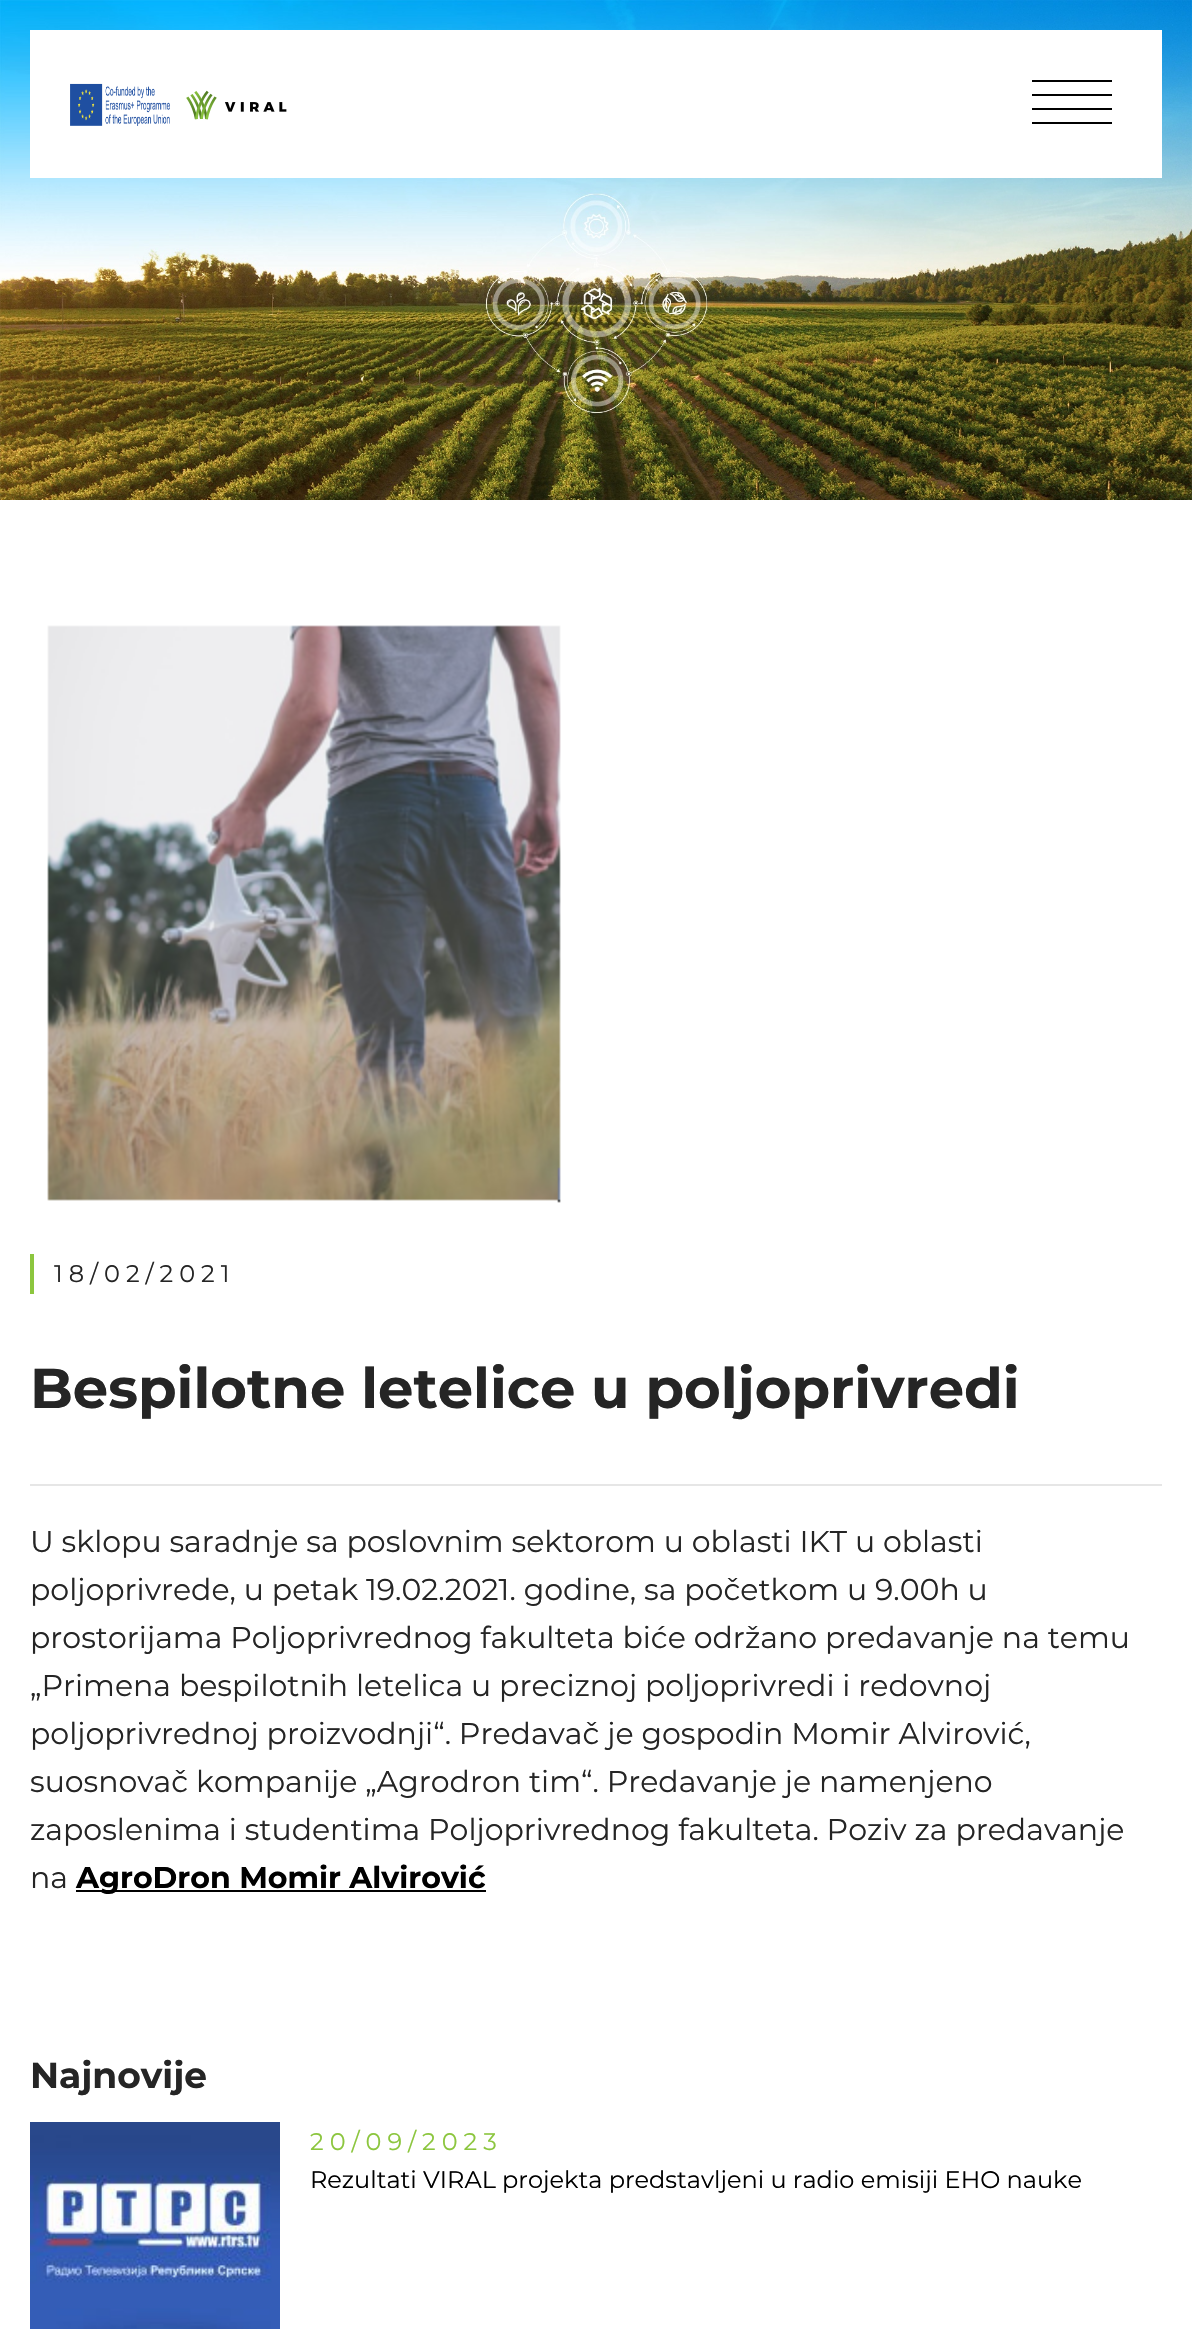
void draw(SkCanvas* canvas) {
	SkPaint paint;
	paint.setAntiAlias(true);
	auto spacedText = [&](const char* s, float x, float y, const SkFont& font, const SkPaint& ink, float letter, float word) {
		std::vector<SkGlyphID> glyphs(font.countText(s, strlen(s), SkTextEncoding::kUTF8));
		std::vector<float> xs(glyphs.size());
		font.textToGlyphs(s, strlen(s), SkTextEncoding::kUTF8, glyphs);
		font.getXPos(glyphs, xs, x);
		float extra = 0;
		for (size_t i = 0; i < glyphs.size(); i++) {
			xs[i] += extra;
			extra += letter + word * (glyphs[i] == font.unicharToGlyph(' '));
		}
		canvas->drawTextBlob(SkTextBlob::MakeFromPosHGlyphs(glyphs, xs, y, font), 0, 0, ink);
	};
	canvas->clear(0xffffffff);
	canvas->drawImageRect(SkImages::DeferredFromEncodedData(SkData::MakeFromFileName("img3.png")), SkRect::MakeXYWH(0, 0, 1192, 500), SkSamplingOptions());
	paint.setColor(0xffffffff);
	canvas->drawRect(SkRect::MakeXYWH(30, 30, 1132, 148), paint);
	canvas->drawImageRect(SkImages::DeferredFromEncodedData(SkData::MakeFromFileName("img1.png")), SkRect::MakeXYWH(70, 83, 100, 43), SkSamplingOptions());
	canvas->drawImageRect(SkImages::DeferredFromEncodedData(SkData::MakeFromFileName("img2.png")), SkRect::MakeXYWH(186, 90, 101, 30), SkSamplingOptions());
	paint.setColor(0xff000000);
	canvas->drawRect(SkRect::MakeXYWH(1032, 80, 80, 2), paint);
	canvas->drawRect(SkRect::MakeXYWH(1032, 94, 80, 2), paint);
	canvas->drawRect(SkRect::MakeXYWH(1032, 108, 80, 2), paint);
	canvas->drawRect(SkRect::MakeXYWH(1032, 122, 80, 2), paint);
	canvas->drawImageRect(SkImages::DeferredFromEncodedData(SkData::MakeFromFileName("img4.png")), SkRect::MakeXYWH(47, 625, 514, 578), SkSamplingOptions());
	paint.setColor(0xff8cc63e);
	canvas->drawRect(SkRect::MakeXYWH(30, 1254, 4, 40), paint);
	SkFont f1(fontMgr->matchFamilyStyle("Montserrat", SkFontStyle::Normal()), 24);
	f1.setSubpixel(true);
	paint.setColor(0xff252525);
	spacedText("18/02/2021", 54, 1282, f1, paint, 6, 0);
	SkFont f2(fontMgr->matchFamilyStyle("Montserrat", SkFontStyle::Bold()), 56);
	f2.setSubpixel(true);
	canvas->drawString("Bespilotne letelice u poljoprivredi", 30, 1408, f2, paint);
	paint.setColor(0xffe6e6e6);
	canvas->drawRect(SkRect::MakeXYWH(30, 1484, 1132, 2), paint);
	SkFont f3(fontMgr->matchFamilyStyle("Montserrat", SkFontStyle::Normal()), 30);
	f3.setSubpixel(true);
	paint.setColor(0xff252525);
	canvas->drawString("U sklopu saradnje sa poslovnim sektorom u oblasti IKT u oblasti", 30, 1552, f3, paint);
	canvas->drawString("poljoprivrede, u petak 19.02.2021. godine, sa početkom u 9.00h u", 30, 1600, f3, paint);
	canvas->drawString("prostorijama Poljoprivrednog fakulteta biće održano predavanje na temu", 30, 1648, f3, paint);
	canvas->drawString("„Primena bespilotnih letelica u preciznoj poljoprivredi i redovnoj", 30, 1696, f3, paint);
	canvas->drawString("poljoprivrednoj proizvodnji“. Predavač je gospodin Momir Alvirović,", 30, 1744, f3, paint);
	canvas->drawString("suosnovač kompanije „Agrodron tim“. Predavanje je namenjeno", 30, 1792, f3, paint);
	canvas->drawString("zaposlenima i studentima Poljoprivrednog fakulteta. Poziv za predavanje", 30, 1840, f3, paint);
	canvas->drawString("na", 30, 1888, f3, paint);
	paint.setColor(0xff000000);
	canvas->drawRect(SkRect::MakeXYWH(76, 1890, 410, 2), paint);
	SkFont f4(fontMgr->matchFamilyStyle("Montserrat", SkFontStyle::Bold()), 30);
	f4.setSubpixel(true);
	canvas->drawString("AgroDron Momir Alvirović", 76, 1888, f4, paint);
	SkFont f5(fontMgr->matchFamilyStyle("Montserrat", SkFontStyle::Bold()), 36);
	f5.setSubpixel(true);
	paint.setColor(0xff252525);
	canvas->drawString("Najnovije", 30, 2088, f5, paint);
	canvas->drawImageRect(SkImages::DeferredFromEncodedData(SkData::MakeFromFileName("img5.png")), SkRect::MakeXYWH(30, 2122, 250, 207), SkSamplingOptions());
	paint.setColor(0xff8cc63e);
	spacedText("20/09/2023", 310, 2150, f1, paint, 6, 0);
	paint.setColor(0xff000000);
	canvas->drawString("Rezultati VIRAL projekta predstavljeni u radio emisiji EHO nauke", 310, 2188, f1, paint);
}
